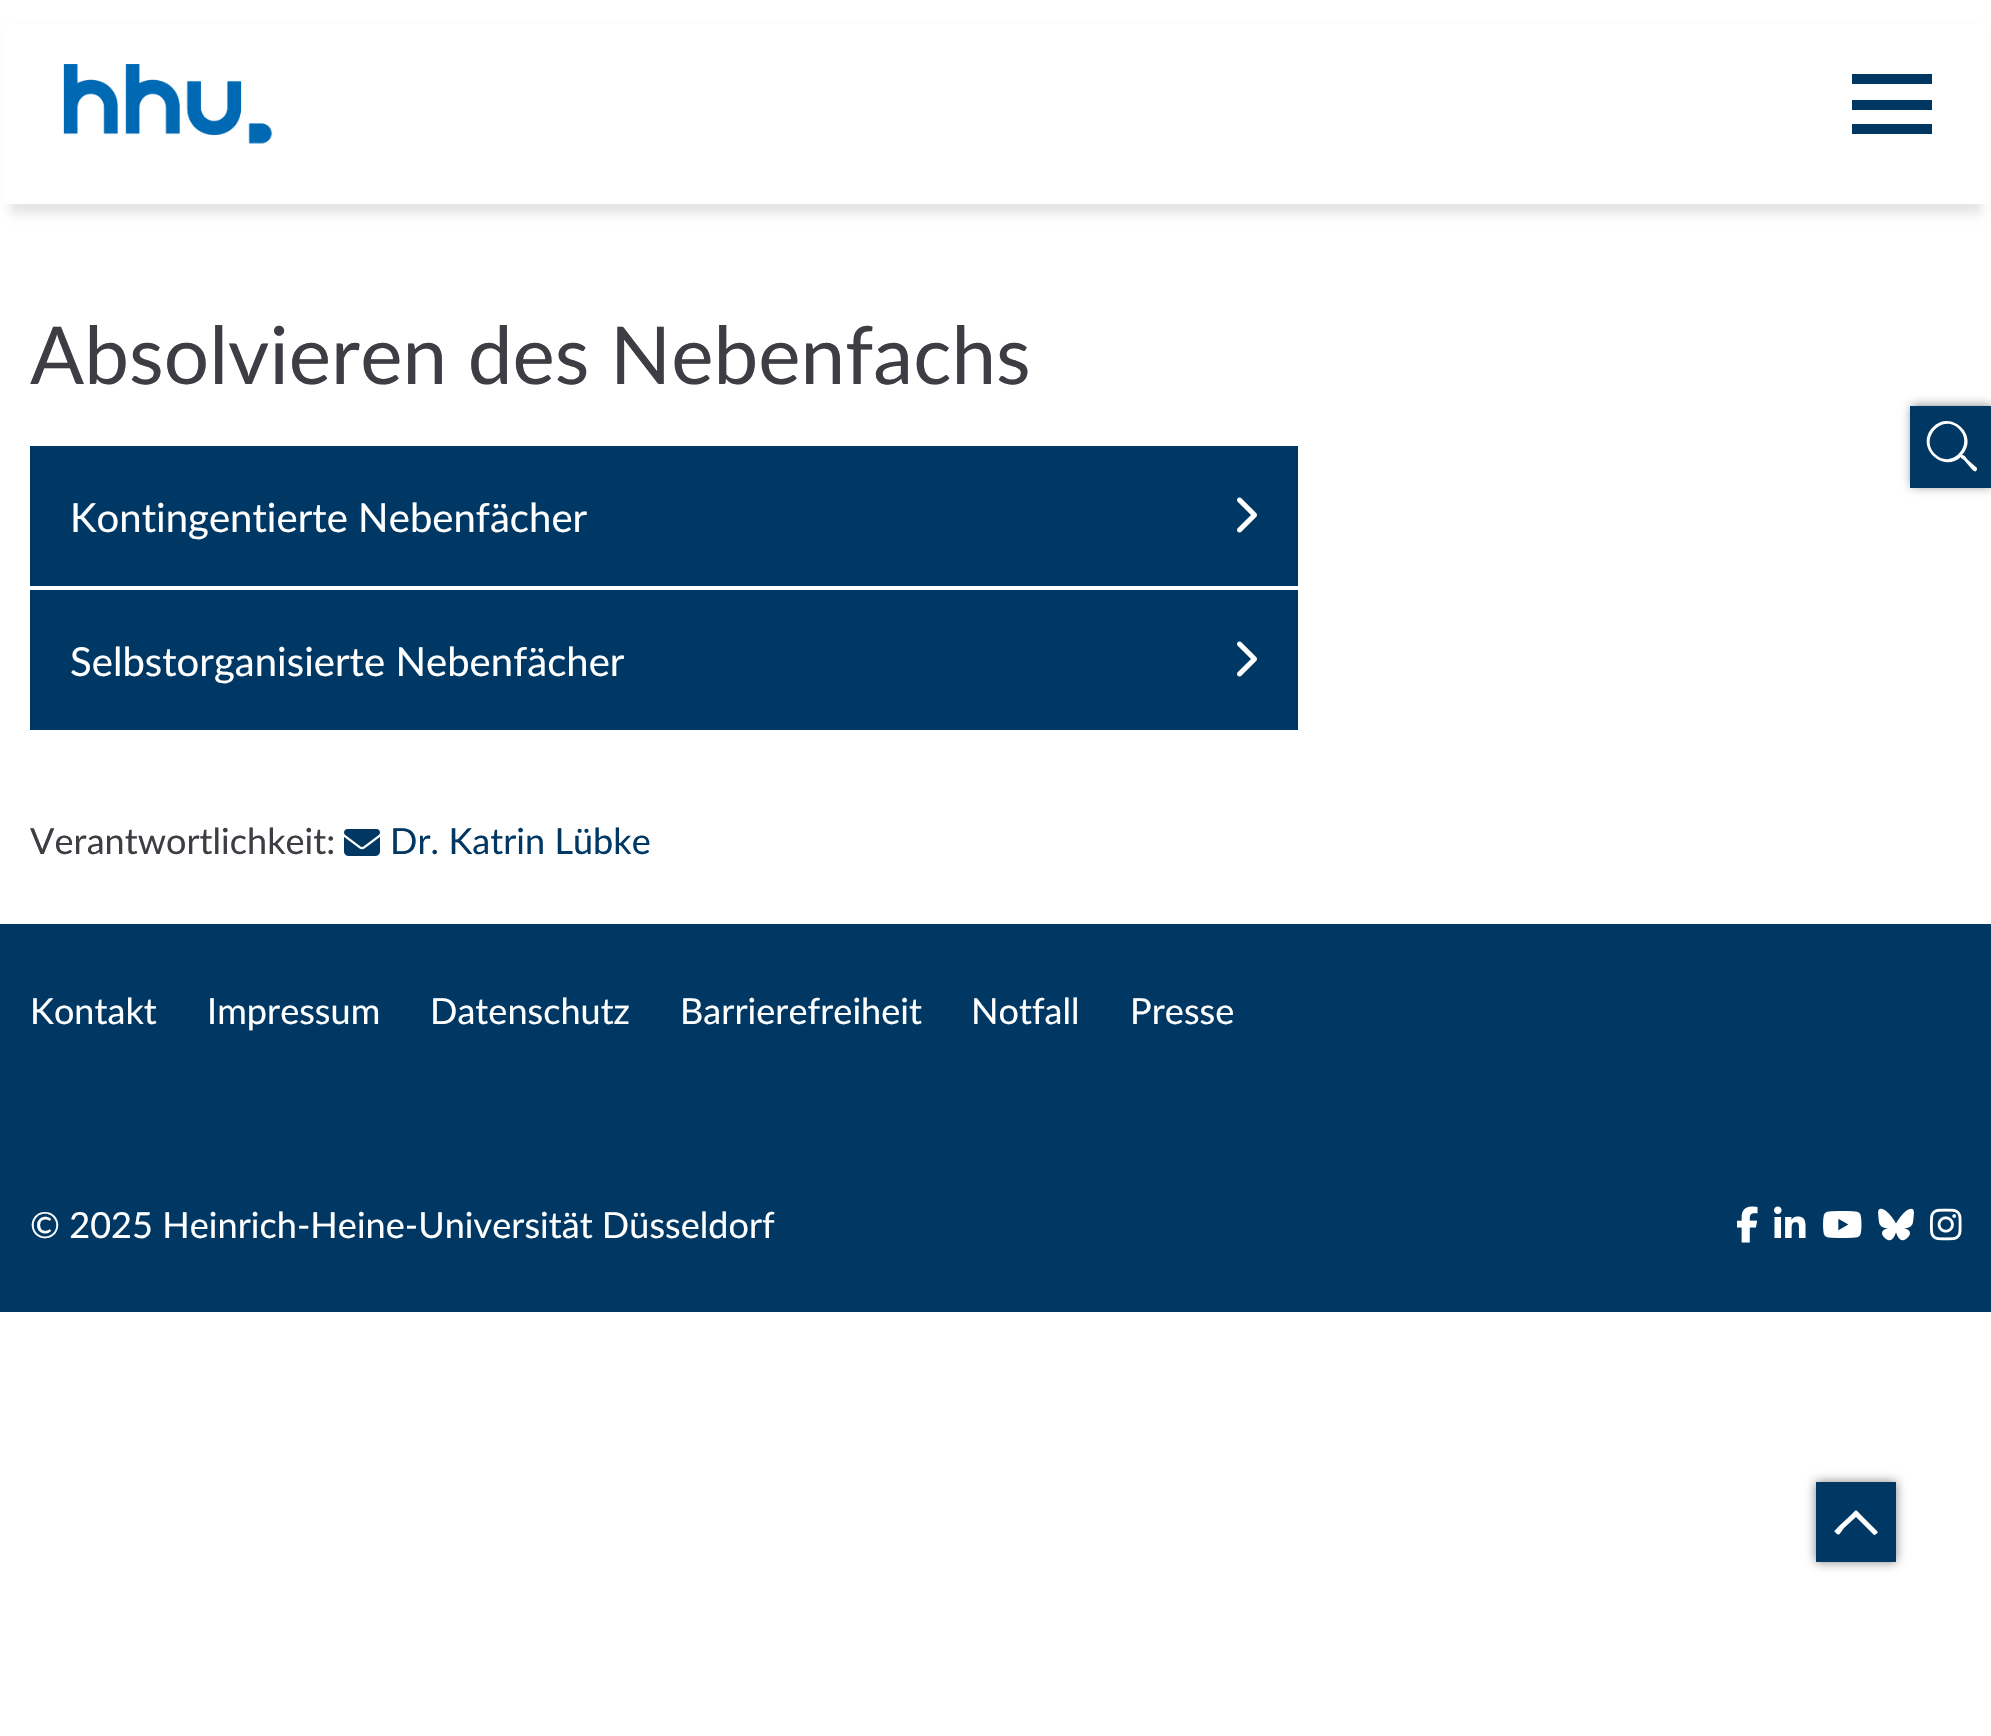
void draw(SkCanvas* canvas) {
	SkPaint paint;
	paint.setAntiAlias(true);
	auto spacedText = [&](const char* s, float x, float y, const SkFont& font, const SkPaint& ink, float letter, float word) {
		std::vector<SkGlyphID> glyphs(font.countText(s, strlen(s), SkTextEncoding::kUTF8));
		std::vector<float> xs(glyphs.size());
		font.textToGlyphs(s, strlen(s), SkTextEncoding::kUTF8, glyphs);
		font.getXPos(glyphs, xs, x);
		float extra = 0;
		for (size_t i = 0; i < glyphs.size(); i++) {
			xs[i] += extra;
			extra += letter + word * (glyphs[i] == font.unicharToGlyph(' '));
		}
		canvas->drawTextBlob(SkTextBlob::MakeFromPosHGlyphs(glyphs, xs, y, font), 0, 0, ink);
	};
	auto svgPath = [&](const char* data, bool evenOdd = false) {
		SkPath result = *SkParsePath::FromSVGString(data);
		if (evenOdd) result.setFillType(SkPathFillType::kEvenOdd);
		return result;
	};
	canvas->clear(0xffffffff);
	paint.setColor(0x1a000000);
	paint.setMaskFilter(SkMaskFilter::MakeBlur(kNormal_SkBlurStyle, 5));
	canvas->drawRect(SkRect::MakeXYWH(10, 30, 1972, 184), paint);
	paint.setMaskFilter(nullptr);
	paint.setColor(0xffffffff);
	canvas->drawRect(SkRect::MakeXYWH(4, 24, 1984, 180), paint);
	canvas->drawImageRect(SkImages::DeferredFromEncodedData(SkData::MakeFromFileName("img1.png")), SkRect::MakeXYWH(63, 64, 210, 80), SkSamplingOptions());
	paint.setColor(0xff003863);
	canvas->drawRect(SkRect::MakeXYWH(1852, 74, 80, 10), paint);
	canvas->drawRect(SkRect::MakeXYWH(1852, 100, 80, 10), paint);
	canvas->drawRect(SkRect::MakeXYWH(1852, 124, 80, 10), paint);
	SkFont f1(fontMgr->matchFamilyStyle("Lato", SkFontStyle::Normal()), 80);
	f1.setSubpixel(true);
	paint.setColor(0xff3d3d43);
	spacedText("Absolvieren des Nebenfachs", 30, 384, f1, paint, 0.05, 0);
	paint.setColor(0xff003865);
	canvas->drawRect(SkRect::MakeXYWH(30, 446, 1268, 140), paint);
	SkFont f2(fontMgr->matchFamilyStyle("Lato", SkFontStyle::Normal()), 40);
	f2.setSubpixel(true);
	paint.setColor(0xffffffff);
	spacedText("Kontingentierte Nebenfächer", 70, 532, f2, paint, 0.05, 0);
	canvas->drawImageRect(SkImages::DeferredFromEncodedData(SkData::MakeFromFileName("img2.png")), SkRect::MakeXYWH(1237, 497, 20, 36), SkSamplingOptions());
	paint.setColor(0xff003865);
	canvas->drawRect(SkRect::MakeXYWH(30, 590, 1268, 140), paint);
	paint.setColor(0xffffffff);
	spacedText("Selbstorganisierte Nebenfächer", 70, 676, f2, paint, 0.05, 0);
	canvas->drawImageRect(SkImages::DeferredFromEncodedData(SkData::MakeFromFileName("img2.png")), SkRect::MakeXYWH(1237, 641, 20, 36), SkSamplingOptions());
	SkFont f3(fontMgr->matchFamilyStyle("Lato", SkFontStyle::Normal()), 36);
	f3.setSubpixel(true);
	paint.setColor(0xff3d3d43);
	spacedText("Verantwortlichkeit:", 30, 854, f3, paint, 0.05, 0);
	canvas->drawImageRect(SkImages::DeferredFromEncodedData(SkData::MakeFromFileName("img3.png")), SkRect::MakeXYWH(344, 829, 36, 27), SkSamplingOptions());
	paint.setColor(0xff003863);
	spacedText("Dr. Katrin Lübke", 390, 854, f3, paint, 0.05, 0);
	paint.setColor(0x80000000);
	paint.setMaskFilter(SkMaskFilter::MakeBlur(kNormal_SkBlurStyle, 5));
	canvas->drawRect(SkRect::MakeXYWH(1912, 406, 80, 80), paint);
	paint.setMaskFilter(nullptr);
	paint.setColor(0xff003863);
	canvas->drawRect(SkRect::MakeXYWH(1910, 406, 81, 82), paint);
	paint.setColor(0xffffffff);
	canvas->drawPath(svgPath("M1977 468V469C1976 475 1971 468 1970 467L1964 460C1962 458 1961 459 1961 457C1942 474 1914 446 1933 427C1951 409 1980 436 1962 455C1965 455 1966 458 1968 460ZM1935 454C1951 470 1975 445 1959 429C1943 413 1919 438 1935 454Z"), paint);
	paint.setColor(0xff003863);
	canvas->drawRect(SkRect::MakeXYWH(0, 924, 1991, 388), paint);
	paint.setColor(0xffffffff);
	spacedText("Kontakt", 30, 1024, f3, paint, 0.05, 0);
	spacedText("Impressum", 207, 1024, f3, paint, 0.05, 0);
	spacedText("Datenschutz", 430, 1024, f3, paint, 0.05, 0);
	spacedText("Barrierefreiheit", 680, 1024, f3, paint, 0.05, 0);
	spacedText("Notfall", 971, 1024, f3, paint, 0.05, 0);
	spacedText("Presse", 1130, 1024, f3, paint, 0.05, 0);
	spacedText("© 2025 Heinrich-Heine-Universität Düsseldorf", 30, 1238, f3, paint, 0.05, 0);
	canvas->drawImageRect(SkImages::DeferredFromEncodedData(SkData::MakeFromFileName("img4.png")), SkRect::MakeXYWH(1737, 1206, 21, 37), SkSamplingOptions());
	canvas->drawImageRect(SkImages::DeferredFromEncodedData(SkData::MakeFromFileName("img5.png")), SkRect::MakeXYWH(1774, 1206, 32, 32), SkSamplingOptions());
	canvas->drawImageRect(SkImages::DeferredFromEncodedData(SkData::MakeFromFileName("img6.png")), SkRect::MakeXYWH(1823, 1211, 39, 27), SkSamplingOptions());
	canvas->drawImageRect(SkImages::DeferredFromEncodedData(SkData::MakeFromFileName("img7.png")), SkRect::MakeXYWH(1878, 1208, 36, 33), SkSamplingOptions());
	canvas->drawImageRect(SkImages::DeferredFromEncodedData(SkData::MakeFromFileName("img8.png")), SkRect::MakeXYWH(1930, 1208, 32, 33), SkSamplingOptions());
	paint.setColor(0x80000000);
	paint.setMaskFilter(SkMaskFilter::MakeBlur(kNormal_SkBlurStyle, 5));
	canvas->drawRect(SkRect::MakeXYWH(1816, 1482, 80, 80), paint);
	paint.setMaskFilter(nullptr);
	paint.setColor(0xff003863);
	canvas->drawRect(SkRect::MakeXYWH(1816, 1482, 80, 80), paint);
	paint.setColor(0xffffffff);
	canvas->drawPath(svgPath("M1835 1532C1833 1531 1837 1529 1838 1527L1852 1514C1857 1509 1855 1509 1860 1514L1877 1531C1879 1532 1876 1535 1874 1535L1856 1517L1844 1528C1839 1534 1840 1537 1835 1532Z"), paint);
}
